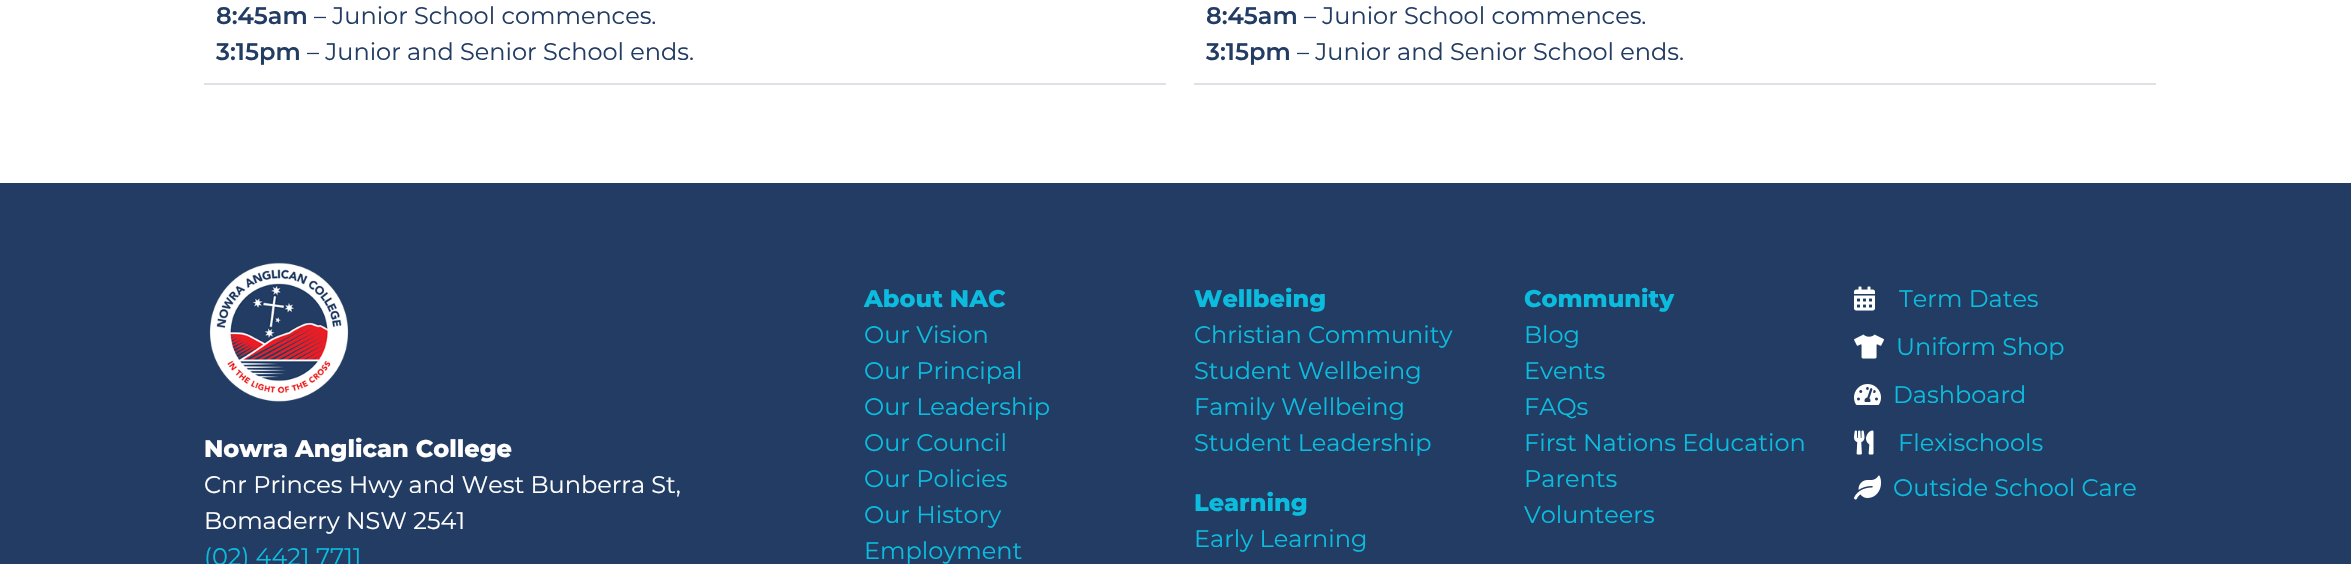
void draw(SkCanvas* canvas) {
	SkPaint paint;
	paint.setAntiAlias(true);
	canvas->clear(0xffffffff);
	paint.setColor(0xffdee2e6);
	canvas->drawRect(SkRect::MakeXYWH(204, 83, 962, 2), paint);
	SkFont f1(fontMgr->matchFamilyStyle("Montserrat", SkFontStyle(600, SkFontStyle::kNormal_Width, SkFontStyle::kUpright_Slant)), 24);
	f1.setSubpixel(true);
	paint.setColor(0xff223c63);
	canvas->drawString("8:45am", 216, 24, f1, paint);
	SkFont f2(fontMgr->matchFamilyStyle("Montserrat", SkFontStyle::Normal()), 24);
	f2.setSubpixel(true);
	canvas->drawString("– Junior School commences.", 314, 24, f2, paint);
	canvas->drawString("3:15pm", 216, 60, f1, paint);
	canvas->drawString("– Junior and Senior School ends.", 307, 60, f2, paint);
	paint.setColor(0xffdee2e6);
	canvas->drawRect(SkRect::MakeXYWH(1194, 83, 962, 2), paint);
	paint.setColor(0xff223c63);
	canvas->drawString("8:45am", 1206, 24, f1, paint);
	canvas->drawString("– Junior School commences.", 1304, 24, f2, paint);
	canvas->drawString("3:15pm", 1206, 60, f1, paint);
	canvas->drawString("– Junior and Senior School ends.", 1297, 60, f2, paint);
	canvas->drawRect(SkRect::MakeXYWH(0, 183, 2351, 381), paint);
	canvas->drawImageRect(SkImages::DeferredFromEncodedData(SkData::MakeFromFileName("img1.png")), SkRect::MakeXYWH(209, 262, 140, 140), SkSamplingOptions());
	SkFont f3(fontMgr->matchFamilyStyle("Montserrat", SkFontStyle(800, SkFontStyle::kNormal_Width, SkFontStyle::kUpright_Slant)), 24);
	f3.setSubpixel(true);
	paint.setColor(0xffffffff);
	canvas->drawString("Nowra Anglican College", 204, 457, f3, paint);
	canvas->drawString("Cnr Princes Hwy and West Bunberra St,", 204, 493, f2, paint);
	canvas->drawString("Bomaderry NSW 2541", 204, 529, f2, paint);
	paint.setColor(0xff0bbcde);
	canvas->drawString("(02) 4421 7711", 204, 565, f2, paint);
	canvas->drawString("About NAC", 864, 307, f3, paint);
	canvas->drawString("Our Vision", 864, 343, f2, paint);
	canvas->drawString("Our Principal", 864, 379, f2, paint);
	canvas->drawString("Our Leadership", 864, 415, f2, paint);
	canvas->drawString("Our Council", 864, 451, f2, paint);
	canvas->drawString("Our Policies", 864, 487, f2, paint);
	canvas->drawString("Our History", 864, 523, f2, paint);
	canvas->drawString("Employment", 864, 559, f2, paint);
	canvas->drawString("Wellbeing", 1194, 307, f3, paint);
	canvas->drawString("Christian Community", 1194, 343, f2, paint);
	canvas->drawString("Student Wellbeing", 1194, 379, f2, paint);
	canvas->drawString("Family Wellbeing", 1194, 415, f2, paint);
	canvas->drawString("Student Leadership", 1194, 451, f2, paint);
	canvas->drawString("Learning", 1194, 511, f3, paint);
	canvas->drawString("Early Learning", 1194, 547, f2, paint);
	canvas->drawString("Community", 1524, 307, f3, paint);
	canvas->drawString("Blog", 1524, 343, f2, paint);
	canvas->drawString("Events", 1524, 379, f2, paint);
	canvas->drawString("FAQs", 1524, 415, f2, paint);
	canvas->drawString("First Nations Education", 1524, 451, f2, paint);
	canvas->drawString("Parents", 1524, 487, f2, paint);
	canvas->drawString("Volunteers", 1524, 523, f2, paint);
	canvas->drawImageRect(SkImages::DeferredFromEncodedData(SkData::MakeFromFileName("img2.png")), SkRect::MakeXYWH(1854, 286, 21, 25), SkSamplingOptions());
	canvas->drawString("Term Dates", 1899, 307, f2, paint);
	canvas->drawImageRect(SkImages::DeferredFromEncodedData(SkData::MakeFromFileName("img3.png")), SkRect::MakeXYWH(1854, 334, 30, 25), SkSamplingOptions());
	canvas->drawString("Uniform Shop", 1896, 355, f2, paint);
	canvas->drawImageRect(SkImages::DeferredFromEncodedData(SkData::MakeFromFileName("img4.png")), SkRect::MakeXYWH(1854, 384, 27, 21), SkSamplingOptions());
	canvas->drawString("Dashboard", 1893, 403, f2, paint);
	canvas->drawImageRect(SkImages::DeferredFromEncodedData(SkData::MakeFromFileName("img5.png")), SkRect::MakeXYWH(1854, 430, 20, 25), SkSamplingOptions());
	canvas->drawString("Flexischools", 1898, 451, f2, paint);
	canvas->drawImageRect(SkImages::DeferredFromEncodedData(SkData::MakeFromFileName("img6.png")), SkRect::MakeXYWH(1854, 475, 28, 25), SkSamplingOptions());
	canvas->drawString("Outside School Care", 1893, 496, f2, paint);
}
